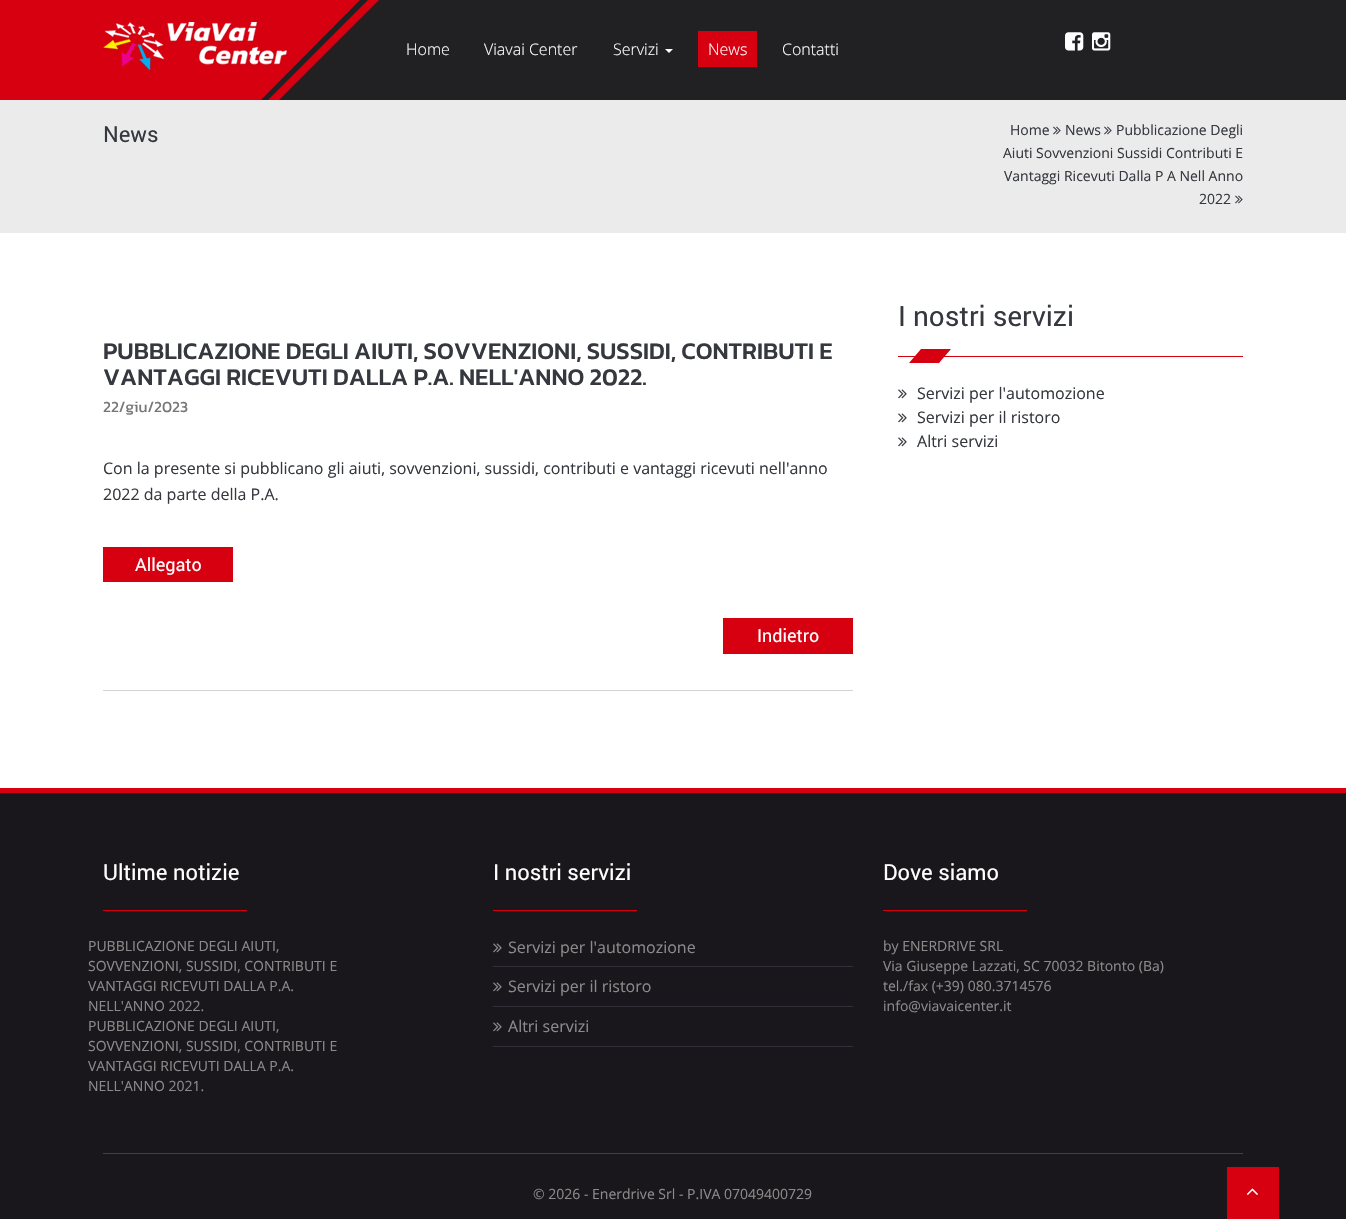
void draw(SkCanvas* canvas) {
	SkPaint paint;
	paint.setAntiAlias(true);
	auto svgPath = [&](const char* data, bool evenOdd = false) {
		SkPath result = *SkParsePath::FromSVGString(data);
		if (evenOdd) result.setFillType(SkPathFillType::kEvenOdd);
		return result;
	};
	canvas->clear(0xffffffff);
	paint.setColor(0xff212022);
	canvas->drawRect(SkRect::MakeXYWH(379, 0, 967, 100), paint);
	paint.setColor(0xffd60010);
	canvas->drawRect(SkRect::MakeXYWH(0, 0, 379, 100), paint);
	canvas->drawImageRect(SkImages::DeferredFromEncodedData(SkData::MakeFromFileName("img1.png")), SkRect::MakeXYWH(103, 22, 185, 49), SkSamplingOptions());
	paint.setColor(0xff212022);
	canvas->drawPath(svgPath("M379 0V100H279Z"), paint);
	canvas->save();
	canvas->clipRect(SkRect::MakeXYWH(103, 0, 276, 100));
	canvas->drawPath(svgPath("M365-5L369-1L261 107L258 103Z"), paint);
	canvas->restore();
	SkFont f1(fontMgr->matchFamilyStyle("Open Sans", SkFontStyle(300, SkFontStyle::kNormal_Width, SkFontStyle::kUpright_Slant)), 16);
	f1.setSubpixel(true);
	paint.setColor(0xffffffff);
	canvas->drawString("Home", 406, 55, f1, paint);
	canvas->drawString("Viavai Center", 484, 55, f1, paint);
	canvas->drawString("Servizi", 613, 55, f1, paint);
	canvas->drawPath(svgPath("M665 49H673L669 53Z"), paint);
	paint.setColor(0xffd60010);
	canvas->drawRect(SkRect::MakeXYWH(698, 31, 59, 36), paint);
	paint.setColor(0xffffffff);
	canvas->drawString("News", 708, 55, f1, paint);
	canvas->drawString("Contatti", 782, 55, f1, paint);
	canvas->drawImageRect(SkImages::DeferredFromEncodedData(SkData::MakeFromFileName("img2.png")), SkRect::MakeXYWH(1065, 32, 19, 19), SkSamplingOptions());
	canvas->drawImageRect(SkImages::DeferredFromEncodedData(SkData::MakeFromFileName("img3.png")), SkRect::MakeXYWH(1092, 32, 19, 19), SkSamplingOptions());
	paint.setColor(0xffebebeb);
	canvas->drawRect(SkRect::MakeXYWH(0, 100, 1346, 133), paint);
	SkFont f2(fontMgr->matchFamilyStyle("Roboto", SkFontStyle::Normal()), 22);
	f2.setSubpixel(true);
	paint.setColor(0xff35383e);
	canvas->drawString("News", 103, 142, f2, paint);
	SkFont f3(fontMgr->matchFamilyStyle("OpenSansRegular", SkFontStyle::Normal()), 14);
	f3.setSubpixel(true);
	canvas->drawString("Pubblicazione Degli", 1116, 135, f3, paint);
	canvas->drawString("Aiuti Sovvenzioni Sussidi Contributi E", 1003, 158, f3, paint);
	canvas->drawString("Vantaggi Ricevuti Dalla P A Nell Anno", 1004, 181, f3, paint);
	canvas->drawString("2022", 1199, 204, f3, paint);
	canvas->drawImageRect(SkImages::DeferredFromEncodedData(SkData::MakeFromFileName("img4.png")), SkRect::MakeXYWH(1235, 195, 8, 9), SkSamplingOptions());
	canvas->drawString("Home", 1010, 135, f3, paint);
	canvas->drawImageRect(SkImages::DeferredFromEncodedData(SkData::MakeFromFileName("img4.png")), SkRect::MakeXYWH(1053, 126, 8, 9), SkSamplingOptions());
	canvas->drawString("News", 1065, 135, f3, paint);
	canvas->drawImageRect(SkImages::DeferredFromEncodedData(SkData::MakeFromFileName("img4.png")), SkRect::MakeXYWH(1104, 126, 8, 9), SkSamplingOptions());
	paint.setColor(0xffd3d3d3);
	canvas->drawRect(SkRect::MakeXYWH(103, 690, 750, 1), paint);
	SkFont f4(fontMgr->matchFamilyStyle("Kanit", SkFontStyle(500, SkFontStyle::kNormal_Width, SkFontStyle::kUpright_Slant)), 24);
	f4.setSubpixel(true);
	paint.setColor(0xff35383e);
	canvas->drawString("PUBBLICAZIONE DEGLI AIUTI, SOVVENZIONI, SUSSIDI, CONTRIBUTI E", 103, 359, f4, paint);
	canvas->drawString("VANTAGGI RICEVUTI DALLA P.A. NELL'ANNO 2022.", 103, 385, f4, paint);
	SkFont f5(fontMgr->matchFamilyStyle("Kanit", SkFontStyle::Normal()), 15.5);
	f5.setSubpixel(true);
	paint.setColor(0xff777777);
	canvas->drawString("22/giu/2023", 103, 412, f5, paint);
	SkFont f6(fontMgr->matchFamilyStyle("OpenSansRegular", SkFontStyle::Normal()), 16);
	f6.setSubpixel(true);
	paint.setColor(0xff35383e);
	canvas->drawString("Con la presente si pubblicano gli aiuti, sovvenzioni, sussidi, contributi e vantaggi ricevuti nell'anno", 103, 474, f6, paint);
	canvas->drawString("2022 da parte della P.A.", 103, 500, f6, paint);
	paint.setColor(0xffd60010);
	canvas->drawRect(SkRect::MakeXYWH(103, 547, 130, 35), paint);
	SkFont f7(fontMgr->matchFamilyStyle("Roboto", SkFontStyle::Normal()), 18);
	f7.setSubpixel(true);
	paint.setColor(0xffffffff);
	canvas->drawString("Allegato", 135, 571, f7, paint);
	paint.setColor(0xffd60010);
	canvas->drawRect(SkRect::MakeXYWH(723, 618, 130, 36), paint);
	paint.setColor(0xffffffff);
	canvas->drawString("Indietro", 757, 642, f7, paint);
	SkFont f8(fontMgr->matchFamilyStyle("Roboto", SkFontStyle::Normal()), 28);
	f8.setSubpixel(true);
	paint.setColor(0xff35383e);
	canvas->drawString("I nostri servizi", 898, 326, f8, paint);
	paint.setColor(0xffd60010);
	canvas->drawRect(SkRect::MakeXYWH(898, 356, 345, 1), paint);
	canvas->drawPath(svgPath("M921 349H951L939 363H909Z"), paint);
	canvas->drawImageRect(SkImages::DeferredFromEncodedData(SkData::MakeFromFileName("img5.png")), SkRect::MakeXYWH(898, 389, 9, 10), SkSamplingOptions());
	paint.setColor(0xff35383e);
	canvas->drawString("Servizi per l'automozione", 917, 399, f6, paint);
	canvas->drawImageRect(SkImages::DeferredFromEncodedData(SkData::MakeFromFileName("img5.png")), SkRect::MakeXYWH(898, 413, 9, 10), SkSamplingOptions());
	canvas->drawString("Servizi per il ristoro", 917, 423, f6, paint);
	canvas->drawImageRect(SkImages::DeferredFromEncodedData(SkData::MakeFromFileName("img5.png")), SkRect::MakeXYWH(898, 437, 9, 10), SkSamplingOptions());
	canvas->drawString("Altri servizi", 917, 447, f6, paint);
	paint.setColor(0xff19171c);
	canvas->drawRect(SkRect::MakeXYWH(0, 793, 1346, 426), paint);
	paint.setColor(0xffd60010);
	canvas->drawRect(SkRect::MakeXYWH(0, 788, 1346, 5), paint);
	paint.setColor(0xffffffff);
	canvas->drawString("Ultime notizie", 103, 880, f2, paint);
	paint.setColor(0xffd60010);
	canvas->drawRect(SkRect::MakeXYWH(103, 910, 144, 1), paint);
	paint.setColor(0xff8b8b8b);
	canvas->drawString("PUBBLICAZIONE DEGLI AIUTI,", 88, 951, f3, paint);
	canvas->drawString("SOVVENZIONI, SUSSIDI, CONTRIBUTI E", 88, 971, f3, paint);
	canvas->drawString("VANTAGGI RICEVUTI DALLA P.A.", 88, 991, f3, paint);
	canvas->drawString("NELL'ANNO 2022.", 88, 1011, f3, paint);
	canvas->drawString("PUBBLICAZIONE DEGLI AIUTI,", 88, 1031, f3, paint);
	canvas->drawString("SOVVENZIONI, SUSSIDI, CONTRIBUTI E", 88, 1051, f3, paint);
	canvas->drawString("VANTAGGI RICEVUTI DALLA P.A.", 88, 1071, f3, paint);
	canvas->drawString("NELL'ANNO 2021.", 88, 1091, f3, paint);
	paint.setColor(0xffffffff);
	canvas->drawString("I nostri servizi", 493, 880, f2, paint);
	paint.setColor(0xffd60010);
	canvas->drawRect(SkRect::MakeXYWH(493, 910, 144, 1), paint);
	paint.setColor(0xff332f38);
	canvas->drawRect(SkRect::MakeXYWH(493, 966, 360, 1), paint);
	canvas->drawImageRect(SkImages::DeferredFromEncodedData(SkData::MakeFromFileName("img6.png")), SkRect::MakeXYWH(493, 943, 9, 10), SkSamplingOptions());
	paint.setColor(0xff8b8b8b);
	canvas->drawString("Servizi per l'automozione", 508, 953, f6, paint);
	paint.setColor(0xff332f38);
	canvas->drawRect(SkRect::MakeXYWH(493, 1006, 360, 1), paint);
	canvas->drawImageRect(SkImages::DeferredFromEncodedData(SkData::MakeFromFileName("img6.png")), SkRect::MakeXYWH(493, 982, 9, 10), SkSamplingOptions());
	paint.setColor(0xff8b8b8b);
	canvas->drawString("Servizi per il ristoro", 508, 992, f6, paint);
	paint.setColor(0xff332f38);
	canvas->drawRect(SkRect::MakeXYWH(493, 1046, 360, 1), paint);
	canvas->drawImageRect(SkImages::DeferredFromEncodedData(SkData::MakeFromFileName("img6.png")), SkRect::MakeXYWH(493, 1022, 9, 10), SkSamplingOptions());
	paint.setColor(0xff8b8b8b);
	canvas->drawString("Altri servizi", 508, 1032, f6, paint);
	paint.setColor(0xffffffff);
	canvas->drawString("Dove siamo", 883, 880, f2, paint);
	paint.setColor(0xffd60010);
	canvas->drawRect(SkRect::MakeXYWH(883, 910, 144, 1), paint);
	paint.setColor(0xff8b8b8b);
	canvas->drawString("by ENERDRIVE SRL", 883, 951, f3, paint);
	canvas->drawString("Via Giuseppe Lazzati, SC 70032 Bitonto (Ba)", 883, 971, f3, paint);
	canvas->drawString("tel./fax (+39) 080.3714576", 883, 991, f3, paint);
	canvas->drawString("info@viavaicenter.it", 883, 1011, f3, paint);
	paint.setColor(0xffd60010);
	canvas->drawRect(SkRect::MakeXYWH(103, 1153, 1140, 1), paint);
	paint.setColor(0xff8b8b8b);
	canvas->drawString("© 2026 - Enerdrive Srl - P.IVA 07049400729", 533, 1199, f3, paint);
	paint.setColor(0xffd60010);
	canvas->drawRect(SkRect::MakeXYWH(1227, 1167, 52, 52), paint);
	canvas->drawImageRect(SkImages::DeferredFromEncodedData(SkData::MakeFromFileName("img7.png")), SkRect::MakeXYWH(1246, 1188, 12, 7), SkSamplingOptions());
}
